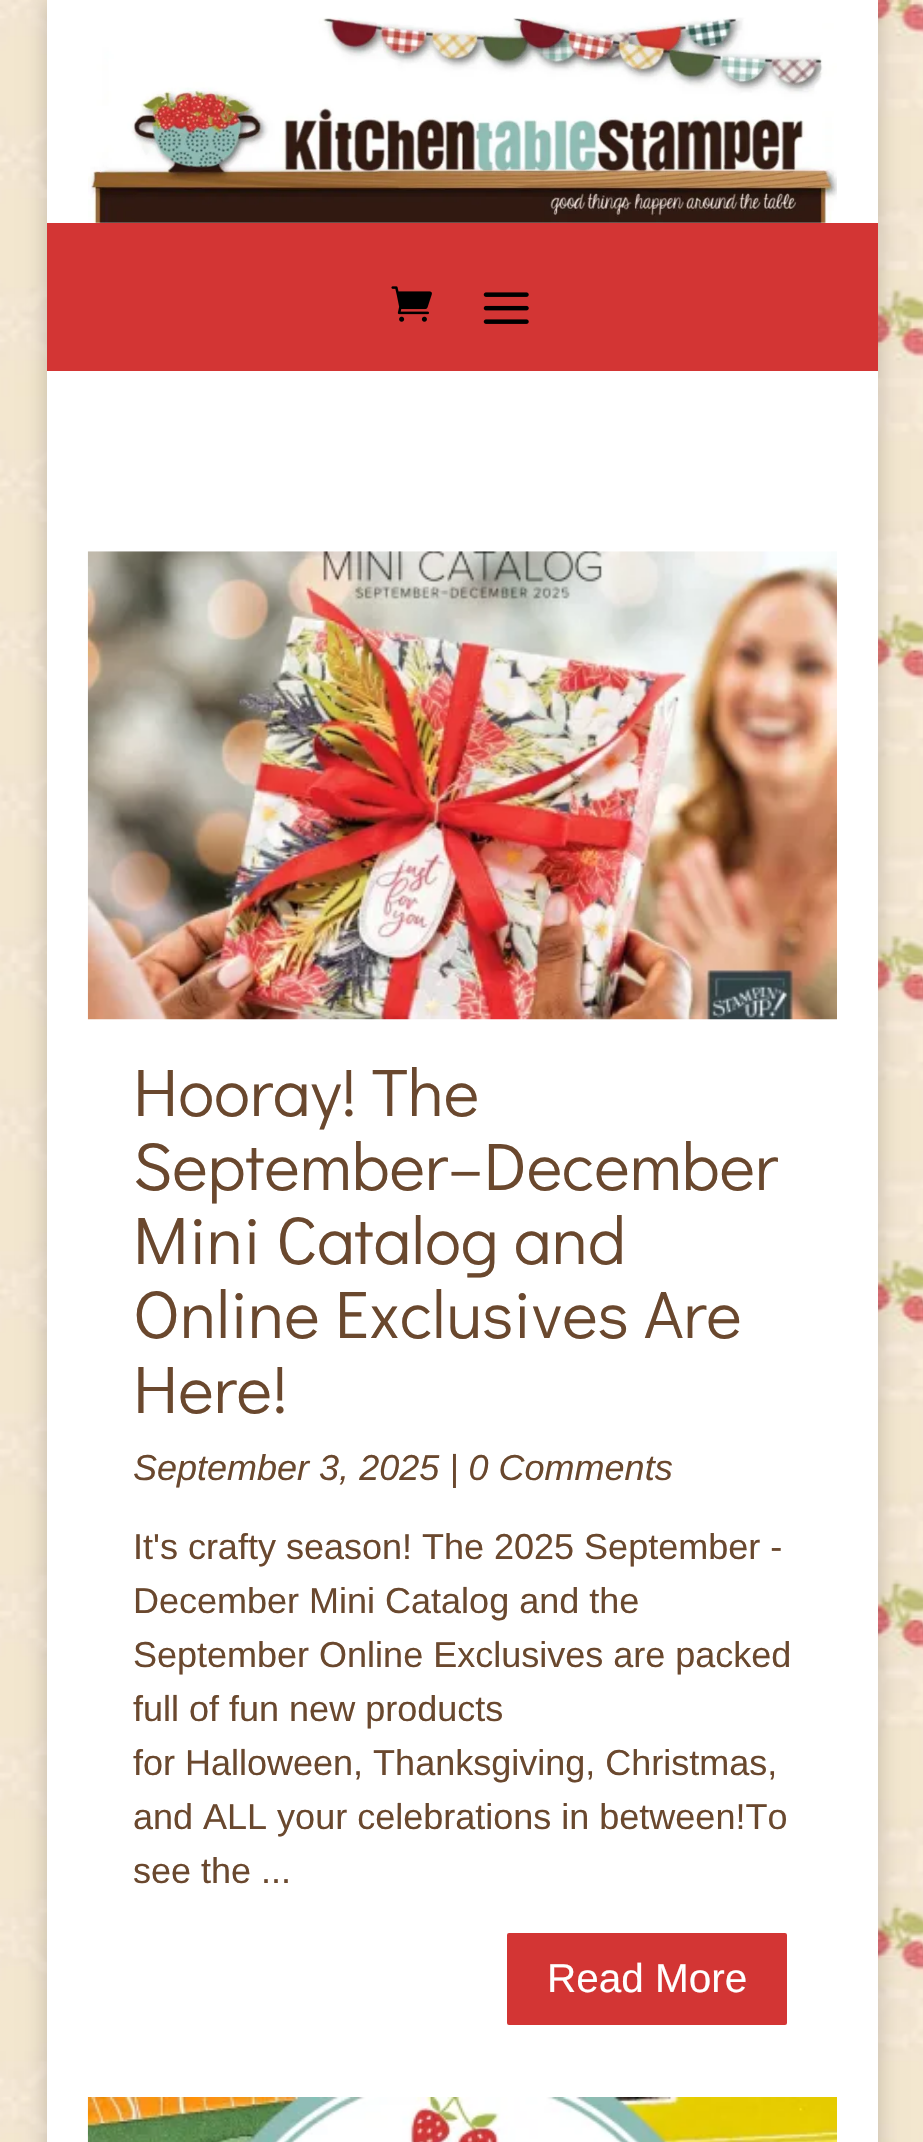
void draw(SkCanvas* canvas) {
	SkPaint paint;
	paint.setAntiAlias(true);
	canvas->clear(0xffffffff);
	canvas->drawImageRect(SkImages::DeferredFromEncodedData(SkData::MakeFromFileName("img1.png")), SkRect::MakeXYWH(0, 0, 923, 2142), SkSamplingOptions());
	paint.setColor(0x33000000);
	paint.setMaskFilter(SkMaskFilter::MakeBlur(kNormal_SkBlurStyle, 11));
	canvas->drawRect(SkRect::MakeXYWH(47, 0, 831, 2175), paint);
	paint.setMaskFilter(nullptr);
	paint.setColor(0xffffffff);
	canvas->drawRect(SkRect::MakeXYWH(47, 0, 831, 223), paint);
	canvas->drawImageRect(SkImages::DeferredFromEncodedData(SkData::MakeFromFileName("img2.png")), SkRect::MakeXYWH(88, 17, 749, 206), SkSamplingOptions());
	paint.setColor(0xffd33534);
	canvas->drawRect(SkRect::MakeXYWH(47, 223, 831, 148), paint);
	canvas->drawImageRect(SkImages::DeferredFromEncodedData(SkData::MakeFromFileName("img3.png")), SkRect::MakeXYWH(391, 286, 41, 36), SkSamplingOptions());
	canvas->drawImageRect(SkImages::DeferredFromEncodedData(SkData::MakeFromFileName("img4.png")), SkRect::MakeXYWH(483, 292, 46, 32), SkSamplingOptions());
	paint.setColor(0xffffffff);
	canvas->drawRect(SkRect::MakeXYWH(47, 371, 831, 1771), paint);
	canvas->drawImageRect(SkImages::DeferredFromEncodedData(SkData::MakeFromFileName("img5.png")), SkRect::MakeXYWH(87, 551, 750, 469), SkSamplingOptions());
	SkFont f1(fontMgr->matchFamilyStyle("Didact Gothic", SkFontStyle::Normal()), 67.5);
	f1.setSubpixel(true);
	paint.setColor(0xff6a482e);
	canvas->drawString("Hooray! The", 133, 1116, f1, paint);
	canvas->drawString("September–December", 133, 1190, f1, paint);
	canvas->drawString("Mini Catalog and", 133, 1264, f1, paint);
	canvas->drawString("Online Exclusives Are", 133, 1338, f1, paint);
	canvas->drawString("Here!", 133, 1413, f1, paint);
	SkFont f2(fontMgr->matchFamilyStyle("Liberation Sans", SkFontStyle::Italic()), 36);
	f2.setSubpixel(true);
	canvas->drawString("September 3, 2025 | 0 Comments", 133, 1480, f2, paint);
	SkFont f3(fontMgr->matchFamilyStyle("Liberation Sans", SkFontStyle::Normal()), 36);
	f3.setSubpixel(true);
	canvas->drawString("It's crafty season! The 2025 September -", 133, 1559, f3, paint);
	canvas->drawString("December Mini Catalog and the", 133, 1613, f3, paint);
	canvas->drawString("September Online Exclusives are packed", 133, 1667, f3, paint);
	canvas->drawString("full of fun new products", 133, 1721, f3, paint);
	canvas->drawString("for Halloween, Thanksgiving, Christmas,", 133, 1775, f3, paint);
	canvas->drawString("and ALL your celebrations in between!To", 133, 1829, f3, paint);
	canvas->drawString("see the ...", 133, 1883, f3, paint);
	paint.setColor(0xffd33534);
	canvas->drawRoundRect(SkRect::MakeXYWH(504.5, 1930.5, 285, 97), 4.5, 4.5, paint);
	paint.setStroke(true);
	paint.setStrokeWidth(5);
	paint.setColor(0xffffffff);
	canvas->drawRoundRect(SkRect::MakeXYWH(504.5, 1930.5, 285, 97), 4.5, 4.5, paint);
	SkFont f4(fontMgr->matchFamilyStyle("Liberation Sans", SkFontStyle::Normal()), 40.5);
	f4.setSubpixel(true);
	paint.setStroke(false);
	canvas->drawString("Read More", 547, 1992, f4, paint);
	canvas->drawImageRect(SkImages::DeferredFromEncodedData(SkData::MakeFromFileName("img6.png")), SkRect::MakeXYWH(87, 2097, 750, 45), SkSamplingOptions());
}
